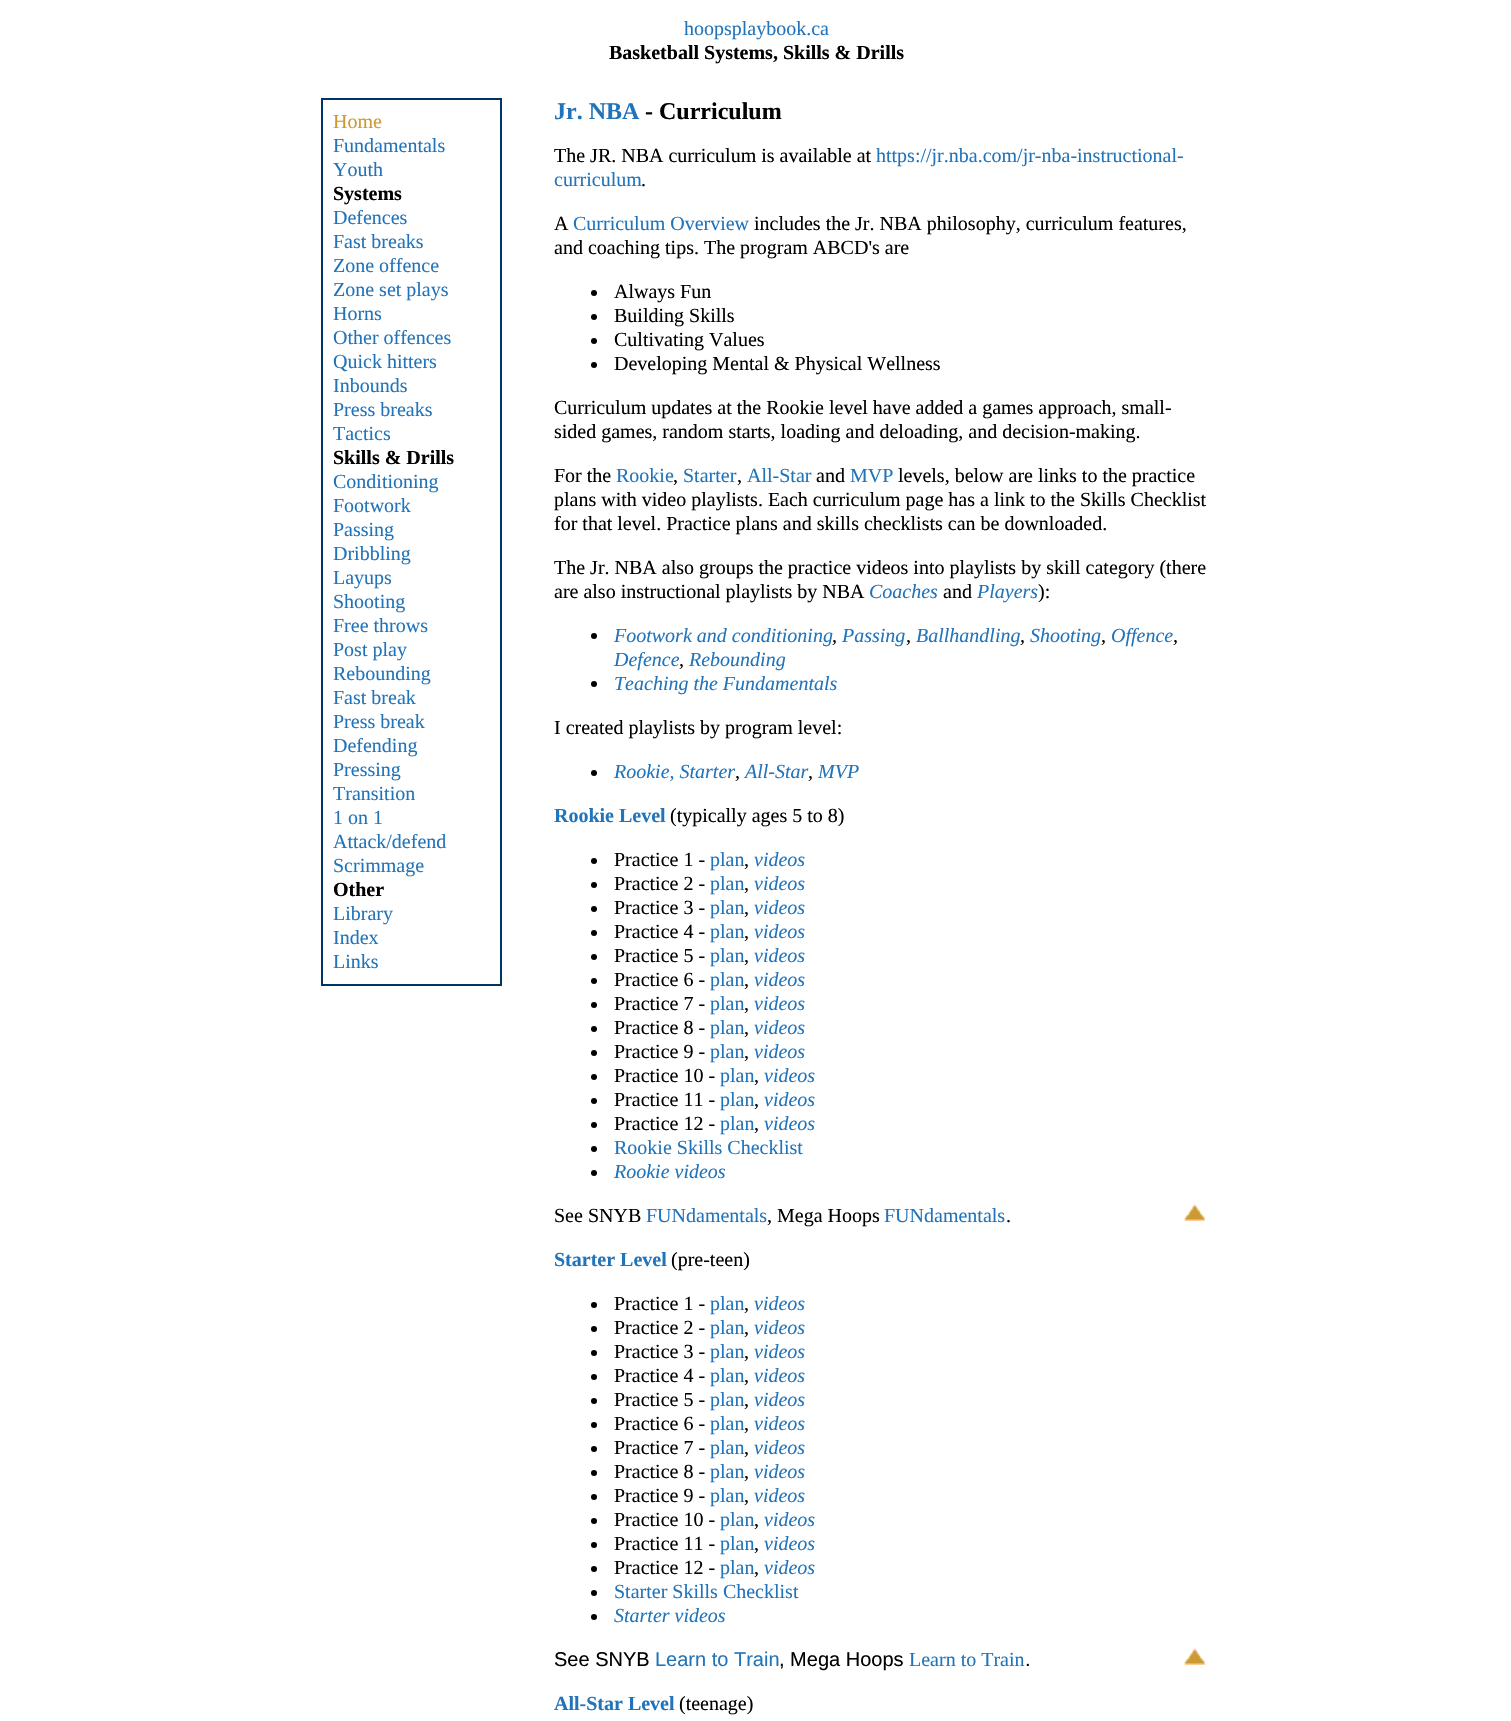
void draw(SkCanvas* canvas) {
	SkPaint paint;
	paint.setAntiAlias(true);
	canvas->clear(0xffffffff);
	SkFont f1(fontMgr->matchFamilyStyle("Liberation Serif", SkFontStyle::Normal()), 20);
	f1.setSubpixel(true);
	paint.setColor(0xff2174ba);
	canvas->drawString("hoopsplaybook.ca", 684, 35, f1, paint);
	SkFont f2(fontMgr->matchFamilyStyle("Liberation Serif", SkFontStyle::Bold()), 20);
	f2.setSubpixel(true);
	paint.setColor(0xff000000);
	canvas->drawString("Basketball Systems, Skills & Drills", 609, 59, f2, paint);
	paint.setColor(0xff003366);
	canvas->drawRect(SkRect::MakeXYWH(321, 98, 180, 2), paint);
	canvas->drawRect(SkRect::MakeXYWH(500, 98, 2, 888), paint);
	canvas->drawRect(SkRect::MakeXYWH(321, 984, 180, 2), paint);
	canvas->drawRect(SkRect::MakeXYWH(321, 98, 2, 888), paint);
	paint.setColor(0xffcc9933);
	canvas->drawString("Home", 333, 128, f1, paint);
	paint.setColor(0xff2174ba);
	canvas->drawString("Fundamentals", 333, 152, f1, paint);
	canvas->drawString("Youth", 333, 176, f1, paint);
	paint.setColor(0xff000000);
	canvas->drawString("Systems", 333, 200, f2, paint);
	paint.setColor(0xff2174ba);
	canvas->drawString("Defences", 333, 224, f1, paint);
	canvas->drawString("Fast breaks", 333, 248, f1, paint);
	canvas->drawString("Zone offence", 333, 272, f1, paint);
	canvas->drawString("Zone set plays", 333, 296, f1, paint);
	canvas->drawString("Horns", 333, 320, f1, paint);
	canvas->drawString("Other offences", 333, 344, f1, paint);
	canvas->drawString("Quick hitters", 333, 368, f1, paint);
	canvas->drawString("Inbounds", 333, 392, f1, paint);
	canvas->drawString("Press breaks", 333, 416, f1, paint);
	canvas->drawString("Tactics", 333, 440, f1, paint);
	paint.setColor(0xff000000);
	canvas->drawString("Skills & Drills", 333, 464, f2, paint);
	paint.setColor(0xff2174ba);
	canvas->drawString("Conditioning", 333, 488, f1, paint);
	canvas->drawString("Footwork", 333, 512, f1, paint);
	canvas->drawString("Passing", 333, 536, f1, paint);
	canvas->drawString("Dribbling", 333, 560, f1, paint);
	canvas->drawString("Layups", 333, 584, f1, paint);
	canvas->drawString("Shooting", 333, 608, f1, paint);
	canvas->drawString("Free throws", 333, 632, f1, paint);
	canvas->drawString("Post play", 333, 656, f1, paint);
	canvas->drawString("Rebounding", 333, 680, f1, paint);
	canvas->drawString("Fast break", 333, 704, f1, paint);
	canvas->drawString("Press break", 333, 728, f1, paint);
	canvas->drawString("Defending", 333, 752, f1, paint);
	canvas->drawString("Pressing", 333, 776, f1, paint);
	canvas->drawString("Transition", 333, 800, f1, paint);
	canvas->drawString("1 on 1", 333, 824, f1, paint);
	canvas->drawString("Attack/defend", 333, 848, f1, paint);
	canvas->drawString("Scrimmage", 333, 872, f1, paint);
	paint.setColor(0xff000000);
	canvas->drawString("Other", 333, 896, f2, paint);
	paint.setColor(0xff2174ba);
	canvas->drawString("Library", 333, 920, f1, paint);
	canvas->drawString("Index", 333, 944, f1, paint);
	canvas->drawString("Links", 333, 968, f1, paint);
	SkFont f3(fontMgr->matchFamilyStyle("Liberation Serif", SkFontStyle::Bold()), 24);
	f3.setSubpixel(true);
	canvas->drawString("Jr. NBA", 554, 119, f3, paint);
	paint.setColor(0xff000000);
	canvas->drawString("- Curriculum", 645, 119, f3, paint);
	canvas->drawString("The JR. NBA curriculum is available at", 554, 162, f1, paint);
	paint.setColor(0xff2174ba);
	canvas->drawString("https://jr.nba.com/jr-nba-instructional-", 876, 162, f1, paint);
	canvas->drawString("curriculum", 554, 186, f1, paint);
	paint.setColor(0xff000000);
	canvas->drawString(".", 641, 186, f1, paint);
	canvas->drawString("A", 554, 230, f1, paint);
	paint.setColor(0xff2174ba);
	canvas->drawString("Curriculum Overview", 573, 230, f1, paint);
	paint.setColor(0xff000000);
	canvas->drawString("includes the Jr. NBA philosophy, curriculum features,", 754, 230, f1, paint);
	canvas->drawString("and coaching tips. The program ABCD's are", 554, 254, f1, paint);
	canvas->drawCircle(594, 293, 3, paint);
	canvas->drawString("Always Fun", 614, 298, f1, paint);
	canvas->drawCircle(594, 317, 3, paint);
	canvas->drawString("Building Skills", 614, 322, f1, paint);
	canvas->drawCircle(594, 341, 3, paint);
	canvas->drawString("Cultivating Values", 614, 346, f1, paint);
	canvas->drawCircle(594, 365, 3, paint);
	canvas->drawString("Developing Mental & Physical Wellness", 614, 370, f1, paint);
	canvas->drawString("Curriculum updates at the Rookie level have added a games approach, small-", 554, 414, f1, paint);
	canvas->drawString("sided games, random starts, loading and deloading, and decision-making.", 554, 438, f1, paint);
	canvas->drawString("For the", 554, 482, f1, paint);
	paint.setColor(0xff2174ba);
	canvas->drawString("Rookie", 616, 482, f1, paint);
	paint.setColor(0xff000000);
	canvas->drawString(",", 673, 482, f1, paint);
	paint.setColor(0xff2174ba);
	canvas->drawString("Starter", 683, 482, f1, paint);
	paint.setColor(0xff000000);
	canvas->drawString(",", 737, 482, f1, paint);
	paint.setColor(0xff2174ba);
	canvas->drawString("All-Star", 747, 482, f1, paint);
	paint.setColor(0xff000000);
	canvas->drawString("and", 816, 482, f1, paint);
	paint.setColor(0xff2174ba);
	canvas->drawString("MVP", 850, 482, f1, paint);
	paint.setColor(0xff000000);
	canvas->drawString("levels, below are links to the practice", 898, 482, f1, paint);
	canvas->drawString("plans with video playlists. Each curriculum page has a link to the Skills Checklist", 554, 506, f1, paint);
	canvas->drawString("for that level. Practice plans and skills checklists can be downloaded.", 554, 530, f1, paint);
	canvas->drawString("The Jr. NBA also groups the practice videos into playlists by skill category (there", 554, 574, f1, paint);
	canvas->drawString("are also instructional playlists by NBA", 554, 598, f1, paint);
	SkFont f4(fontMgr->matchFamilyStyle("Liberation Serif", SkFontStyle::Italic()), 20);
	f4.setSubpixel(true);
	paint.setColor(0xff2174ba);
	canvas->drawString("Coaches", 869, 598, f4, paint);
	paint.setColor(0xff000000);
	canvas->drawString("and", 943, 598, f1, paint);
	paint.setColor(0xff2174ba);
	canvas->drawString("Players", 977, 598, f4, paint);
	paint.setColor(0xff000000);
	canvas->drawString("):", 1038, 598, f1, paint);
	canvas->drawCircle(594, 636, 3, paint);
	paint.setColor(0xff2174ba);
	canvas->drawString("Footwork and conditioning", 614, 642, f4, paint);
	canvas->drawString("Passing", 842, 642, f4, paint);
	canvas->drawString("Ballhandling", 916, 642, f4, paint);
	canvas->drawString("Shooting", 1030, 642, f4, paint);
	canvas->drawString("Offence", 1111, 642, f4, paint);
	paint.setColor(0xff000000);
	canvas->drawString(",", 832, 642, f4, paint);
	canvas->drawString(",", 906, 642, f4, paint);
	canvas->drawString(",", 1020, 642, f4, paint);
	canvas->drawString(",", 1101, 642, f4, paint);
	canvas->drawString(",", 1173, 642, f4, paint);
	paint.setColor(0xff2174ba);
	canvas->drawString("Defence", 614, 666, f4, paint);
	paint.setColor(0xff000000);
	canvas->drawString(",", 679, 666, f4, paint);
	paint.setColor(0xff2174ba);
	canvas->drawString("Rebounding", 689, 666, f4, paint);
	paint.setColor(0xff000000);
	canvas->drawCircle(594, 684, 3, paint);
	paint.setColor(0xff2174ba);
	canvas->drawString("Teaching the Fundamentals", 614, 690, f4, paint);
	paint.setColor(0xff000000);
	canvas->drawString("I created playlists by program level:", 554, 734, f1, paint);
	canvas->drawCircle(594, 773, 3, paint);
	paint.setColor(0xff2174ba);
	canvas->drawString("Rookie, Starter", 614, 778, f4, paint);
	canvas->drawString("All-Star", 745, 778, f4, paint);
	canvas->drawString("MVP", 818, 778, f4, paint);
	paint.setColor(0xff000000);
	canvas->drawString(",", 735, 778, f4, paint);
	canvas->drawString(",", 808, 778, f4, paint);
	paint.setColor(0xff2174ba);
	canvas->drawString("Rookie Level", 554, 822, f2, paint);
	paint.setColor(0xff000000);
	canvas->drawString("(typically ages 5 to 8)", 670, 822, f1, paint);
	canvas->drawCircle(594, 861, 3, paint);
	canvas->drawString("Practice 1 -", 614, 866, f1, paint);
	paint.setColor(0xff2174ba);
	canvas->drawString("plan", 710, 866, f1, paint);
	canvas->drawString("videos", 754, 866, f4, paint);
	paint.setColor(0xff000000);
	canvas->drawString(",", 744, 866, f1, paint);
	canvas->drawCircle(594, 885, 3, paint);
	canvas->drawString("Practice 2 -", 614, 890, f1, paint);
	paint.setColor(0xff2174ba);
	canvas->drawString("plan", 710, 890, f1, paint);
	canvas->drawString("videos", 754, 890, f4, paint);
	paint.setColor(0xff000000);
	canvas->drawString(",", 744, 890, f1, paint);
	canvas->drawCircle(594, 909, 3, paint);
	canvas->drawString("Practice 3 -", 614, 914, f1, paint);
	paint.setColor(0xff2174ba);
	canvas->drawString("plan", 710, 914, f1, paint);
	canvas->drawString("videos", 754, 914, f4, paint);
	paint.setColor(0xff000000);
	canvas->drawString(",", 744, 914, f1, paint);
	canvas->drawCircle(594, 933, 3, paint);
	canvas->drawString("Practice 4 -", 614, 938, f1, paint);
	paint.setColor(0xff2174ba);
	canvas->drawString("plan", 710, 938, f1, paint);
	canvas->drawString("videos", 754, 938, f4, paint);
	paint.setColor(0xff000000);
	canvas->drawString(",", 744, 938, f1, paint);
	canvas->drawCircle(594, 957, 3, paint);
	canvas->drawString("Practice 5 -", 614, 962, f1, paint);
	paint.setColor(0xff2174ba);
	canvas->drawString("plan", 710, 962, f1, paint);
	canvas->drawString("videos", 754, 962, f4, paint);
	paint.setColor(0xff000000);
	canvas->drawString(",", 744, 962, f1, paint);
	canvas->drawCircle(594, 981, 3, paint);
	canvas->drawString("Practice 6 -", 614, 986, f1, paint);
	paint.setColor(0xff2174ba);
	canvas->drawString("plan", 710, 986, f1, paint);
	canvas->drawString("videos", 754, 986, f4, paint);
	paint.setColor(0xff000000);
	canvas->drawString(",", 744, 986, f1, paint);
	canvas->drawCircle(594, 1005, 3, paint);
	canvas->drawString("Practice 7 -", 614, 1010, f1, paint);
	paint.setColor(0xff2174ba);
	canvas->drawString("plan", 710, 1010, f1, paint);
	canvas->drawString("videos", 754, 1010, f4, paint);
	paint.setColor(0xff000000);
	canvas->drawString(",", 744, 1010, f1, paint);
	canvas->drawCircle(594, 1029, 3, paint);
	canvas->drawString("Practice 8 -", 614, 1034, f1, paint);
	paint.setColor(0xff2174ba);
	canvas->drawString("plan", 710, 1034, f1, paint);
	canvas->drawString("videos", 754, 1034, f4, paint);
	paint.setColor(0xff000000);
	canvas->drawString(",", 744, 1034, f1, paint);
	canvas->drawCircle(594, 1053, 3, paint);
	canvas->drawString("Practice 9 -", 614, 1058, f1, paint);
	paint.setColor(0xff2174ba);
	canvas->drawString("plan", 710, 1058, f1, paint);
	canvas->drawString("videos", 754, 1058, f4, paint);
	paint.setColor(0xff000000);
	canvas->drawString(",", 744, 1058, f1, paint);
	canvas->drawCircle(594, 1077, 3, paint);
	canvas->drawString("Practice 10 -", 614, 1082, f1, paint);
	paint.setColor(0xff2174ba);
	canvas->drawString("plan", 720, 1082, f1, paint);
	canvas->drawString("videos", 764, 1082, f4, paint);
	paint.setColor(0xff000000);
	canvas->drawString(",", 754, 1082, f1, paint);
	canvas->drawCircle(594, 1101, 3, paint);
	canvas->drawString("Practice 11 -", 614, 1106, f1, paint);
	paint.setColor(0xff2174ba);
	canvas->drawString("plan", 720, 1106, f1, paint);
	canvas->drawString("videos", 764, 1106, f4, paint);
	paint.setColor(0xff000000);
	canvas->drawString(",", 754, 1106, f1, paint);
	canvas->drawCircle(594, 1125, 3, paint);
	canvas->drawString("Practice 12 -", 614, 1130, f1, paint);
	paint.setColor(0xff2174ba);
	canvas->drawString("plan", 720, 1130, f1, paint);
	canvas->drawString("videos", 764, 1130, f4, paint);
	paint.setColor(0xff000000);
	canvas->drawString(",", 754, 1130, f1, paint);
	canvas->drawCircle(594, 1149, 3, paint);
	paint.setColor(0xff2174ba);
	canvas->drawString("Rookie Skills Checklist", 614, 1154, f1, paint);
	paint.setColor(0xff000000);
	canvas->drawCircle(594, 1173, 3, paint);
	paint.setColor(0xff2174ba);
	canvas->drawString("Rookie videos", 614, 1178, f4, paint);
	paint.setColor(0xff000000);
	canvas->drawString("See SNYB", 554, 1222, f1, paint);
	paint.setColor(0xff2174ba);
	canvas->drawString("FUNdamentals", 646, 1222, f1, paint);
	paint.setColor(0xff000000);
	canvas->drawString(", Mega Hoops", 767, 1222, f1, paint);
	paint.setColor(0xff2174ba);
	canvas->drawString("FUNdamentals", 884, 1222, f1, paint);
	paint.setColor(0xff000000);
	canvas->drawString(".", 1006, 1222, f1, paint);
	canvas->drawImageRect(SkImages::DeferredFromEncodedData(SkData::MakeFromFileName("img1.png")), SkRect::MakeXYWH(1183, 1204, 23, 17), SkSamplingOptions());
	paint.setColor(0xff2174ba);
	canvas->drawString("Starter Level", 554, 1266, f2, paint);
	paint.setColor(0xff000000);
	canvas->drawString("(pre-teen)", 671, 1266, f1, paint);
	canvas->drawCircle(594, 1305, 3, paint);
	canvas->drawString("Practice 1 -", 614, 1310, f1, paint);
	paint.setColor(0xff2174ba);
	canvas->drawString("plan", 710, 1310, f1, paint);
	canvas->drawString("videos", 754, 1310, f4, paint);
	paint.setColor(0xff000000);
	canvas->drawString(",", 744, 1310, f1, paint);
	canvas->drawCircle(594, 1329, 3, paint);
	canvas->drawString("Practice 2 -", 614, 1334, f1, paint);
	paint.setColor(0xff2174ba);
	canvas->drawString("plan", 710, 1334, f1, paint);
	canvas->drawString("videos", 754, 1334, f4, paint);
	paint.setColor(0xff000000);
	canvas->drawString(",", 744, 1334, f1, paint);
	canvas->drawCircle(594, 1353, 3, paint);
	canvas->drawString("Practice 3 -", 614, 1358, f1, paint);
	paint.setColor(0xff2174ba);
	canvas->drawString("plan", 710, 1358, f1, paint);
	canvas->drawString("videos", 754, 1358, f4, paint);
	paint.setColor(0xff000000);
	canvas->drawString(",", 744, 1358, f1, paint);
	canvas->drawCircle(594, 1377, 3, paint);
	canvas->drawString("Practice 4 -", 614, 1382, f1, paint);
	paint.setColor(0xff2174ba);
	canvas->drawString("plan", 710, 1382, f1, paint);
	canvas->drawString("videos", 754, 1382, f4, paint);
	paint.setColor(0xff000000);
	canvas->drawString(",", 744, 1382, f1, paint);
	canvas->drawCircle(594, 1401, 3, paint);
	canvas->drawString("Practice 5 -", 614, 1406, f1, paint);
	paint.setColor(0xff2174ba);
	canvas->drawString("plan", 710, 1406, f1, paint);
	canvas->drawString("videos", 754, 1406, f4, paint);
	paint.setColor(0xff000000);
	canvas->drawString(",", 744, 1406, f1, paint);
	canvas->drawCircle(594, 1425, 3, paint);
	canvas->drawString("Practice 6 -", 614, 1430, f1, paint);
	paint.setColor(0xff2174ba);
	canvas->drawString("plan", 710, 1430, f1, paint);
	canvas->drawString("videos", 754, 1430, f4, paint);
	paint.setColor(0xff000000);
	canvas->drawString(",", 744, 1430, f1, paint);
	canvas->drawCircle(594, 1449, 3, paint);
	canvas->drawString("Practice 7 -", 614, 1454, f1, paint);
	paint.setColor(0xff2174ba);
	canvas->drawString("plan", 710, 1454, f1, paint);
	canvas->drawString("videos", 754, 1454, f4, paint);
	paint.setColor(0xff000000);
	canvas->drawString(",", 744, 1454, f1, paint);
	canvas->drawCircle(594, 1473, 3, paint);
	canvas->drawString("Practice 8 -", 614, 1478, f1, paint);
	paint.setColor(0xff2174ba);
	canvas->drawString("plan", 710, 1478, f1, paint);
	canvas->drawString("videos", 754, 1478, f4, paint);
	paint.setColor(0xff000000);
	canvas->drawString(",", 744, 1478, f1, paint);
	canvas->drawCircle(594, 1497, 3, paint);
	canvas->drawString("Practice 9 -", 614, 1502, f1, paint);
	paint.setColor(0xff2174ba);
	canvas->drawString("plan", 710, 1502, f1, paint);
	canvas->drawString("videos", 754, 1502, f4, paint);
	paint.setColor(0xff000000);
	canvas->drawString(",", 744, 1502, f1, paint);
	canvas->drawCircle(594, 1521, 3, paint);
	canvas->drawString("Practice 10 -", 614, 1526, f1, paint);
	paint.setColor(0xff2174ba);
	canvas->drawString("plan", 720, 1526, f1, paint);
	canvas->drawString("videos", 764, 1526, f4, paint);
	paint.setColor(0xff000000);
	canvas->drawString(",", 754, 1526, f1, paint);
	canvas->drawCircle(594, 1545, 3, paint);
	canvas->drawString("Practice 11 -", 614, 1550, f1, paint);
	paint.setColor(0xff2174ba);
	canvas->drawString("plan", 720, 1550, f1, paint);
	canvas->drawString("videos", 764, 1550, f4, paint);
	paint.setColor(0xff000000);
	canvas->drawString(",", 754, 1550, f1, paint);
	canvas->drawCircle(594, 1569, 3, paint);
	canvas->drawString("Practice 12 -", 614, 1574, f1, paint);
	paint.setColor(0xff2174ba);
	canvas->drawString("plan", 720, 1574, f1, paint);
	canvas->drawString("videos", 764, 1574, f4, paint);
	paint.setColor(0xff000000);
	canvas->drawString(",", 754, 1574, f1, paint);
	canvas->drawCircle(594, 1593, 3, paint);
	paint.setColor(0xff2174ba);
	canvas->drawString("Starter Skills Checklist", 614, 1598, f1, paint);
	paint.setColor(0xff000000);
	canvas->drawCircle(594, 1617, 3, paint);
	paint.setColor(0xff2174ba);
	canvas->drawString("Starter videos", 614, 1622, f4, paint);
	SkFont f5(fontMgr->matchFamilyStyle("Liberation Sans", SkFontStyle::Normal()), 20);
	f5.setSubpixel(true);
	paint.setColor(0xff000000);
	canvas->drawString("See SNYB", 554, 1666, f5, paint);
	paint.setColor(0xff2174ba);
	canvas->drawString("Learn to Train", 655, 1666, f5, paint);
	paint.setColor(0xff000000);
	canvas->drawString(", Mega Hoops", 779, 1666, f5, paint);
	paint.setColor(0xff2174ba);
	canvas->drawString("Learn to Train", 909, 1666, f1, paint);
	paint.setColor(0xff000000);
	canvas->drawString(".", 1025, 1666, f5, paint);
	canvas->drawImageRect(SkImages::DeferredFromEncodedData(SkData::MakeFromFileName("img1.png")), SkRect::MakeXYWH(1183, 1648, 23, 17), SkSamplingOptions());
	paint.setColor(0xff2174ba);
	canvas->drawString("All-Star Level", 554, 1710, f2, paint);
	paint.setColor(0xff000000);
	canvas->drawString("(teenage)", 679, 1710, f1, paint);
}
